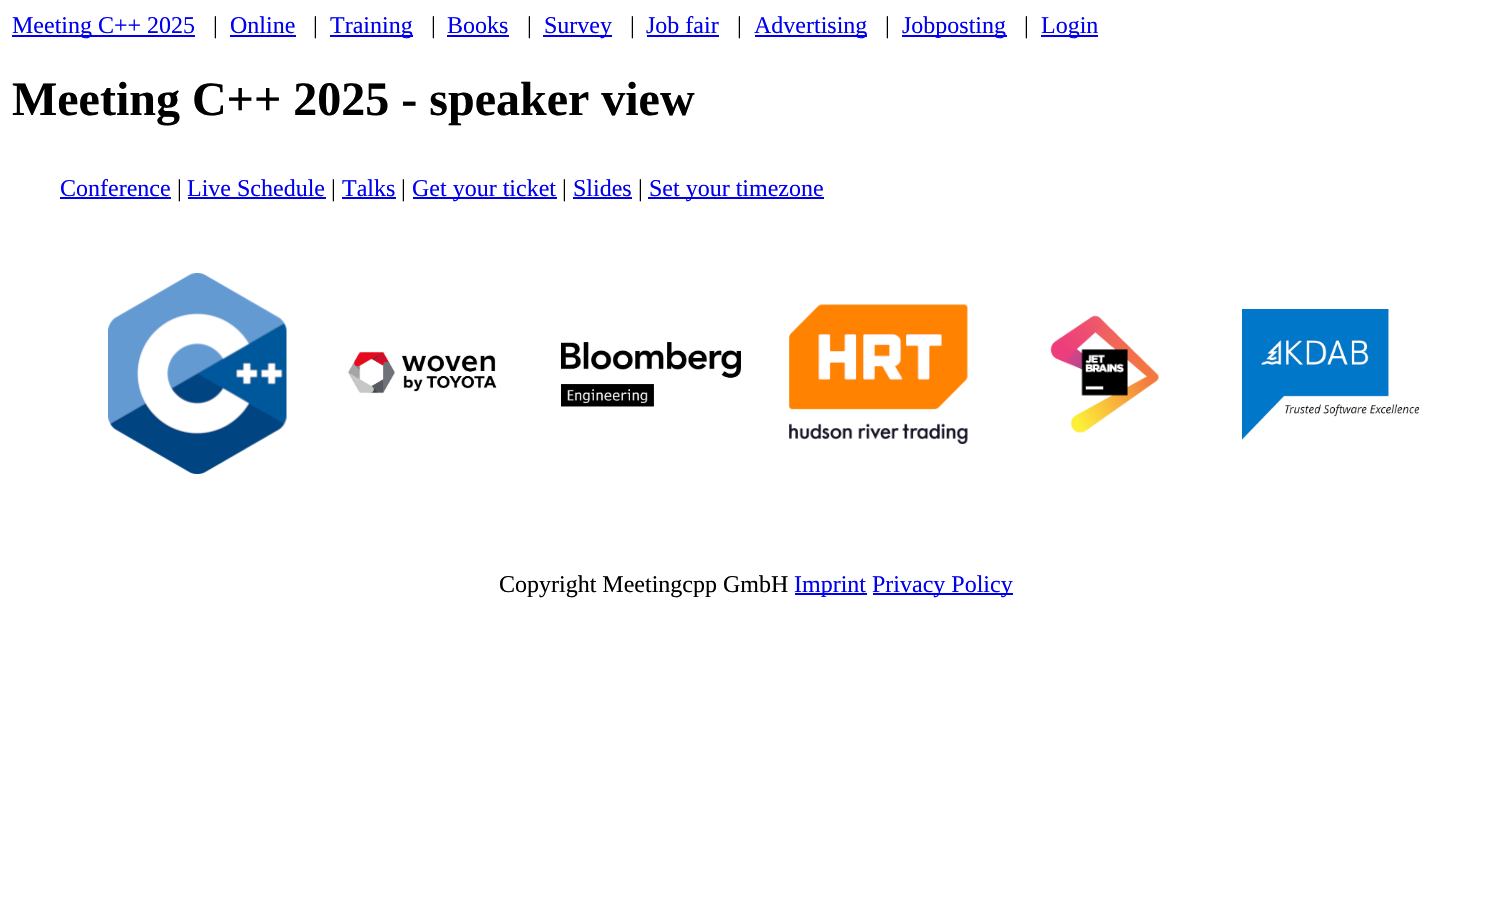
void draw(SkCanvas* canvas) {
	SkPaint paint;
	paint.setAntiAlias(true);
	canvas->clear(0xffffffff);
	paint.setColor(0xff0000ee);
	canvas->drawRect(SkRect::MakeXYWH(12, 35, 183, 2), paint);
	SkFont f1(fontMgr->matchFamilyStyle("Liberation Serif", SkFontStyle::Normal()), 24);
	f1.setSubpixel(true);
	canvas->drawString("Meeting C++ 2025", 12, 33, f1, paint);
	paint.setColor(0xff000000);
	canvas->drawString("|", 213, 33, f1, paint);
	paint.setColor(0xff0000ee);
	canvas->drawString("Online", 230, 33, f1, paint);
	canvas->drawRect(SkRect::MakeXYWH(230, 35, 66, 2), paint);
	paint.setColor(0xff000000);
	canvas->drawString("|", 313, 33, f1, paint);
	paint.setColor(0xff0000ee);
	canvas->drawRect(SkRect::MakeXYWH(330, 35, 83, 2), paint);
	canvas->drawString("Training", 330, 33, f1, paint);
	paint.setColor(0xff000000);
	canvas->drawString("|", 431, 33, f1, paint);
	paint.setColor(0xff0000ee);
	canvas->drawString("Books", 447, 33, f1, paint);
	canvas->drawRect(SkRect::MakeXYWH(447, 35, 62, 2), paint);
	paint.setColor(0xff000000);
	canvas->drawString("|", 527, 33, f1, paint);
	paint.setColor(0xff0000ee);
	canvas->drawRect(SkRect::MakeXYWH(543, 35, 69, 2), paint);
	canvas->drawString("Survey", 544, 33, f1, paint);
	paint.setColor(0xff000000);
	canvas->drawString("|", 630, 33, f1, paint);
	paint.setColor(0xff0000ee);
	canvas->drawString("Job fair", 646, 33, f1, paint);
	canvas->drawRect(SkRect::MakeXYWH(647, 35, 72, 2), paint);
	paint.setColor(0xff000000);
	canvas->drawString("|", 737, 33, f1, paint);
	paint.setColor(0xff0000ee);
	canvas->drawRect(SkRect::MakeXYWH(755, 35, 112, 2), paint);
	canvas->drawString("Advertising", 754, 33, f1, paint);
	paint.setColor(0xff000000);
	canvas->drawString("|", 885, 33, f1, paint);
	paint.setColor(0xff0000ee);
	canvas->drawRect(SkRect::MakeXYWH(902, 35, 105, 2), paint);
	canvas->drawString("Jobposting", 902, 33, f1, paint);
	paint.setColor(0xff000000);
	canvas->drawString("|", 1024, 33, f1, paint);
	paint.setColor(0xff0000ee);
	canvas->drawRect(SkRect::MakeXYWH(1041, 35, 57, 2), paint);
	canvas->drawString("Login", 1041, 33, f1, paint);
	SkFont f2(fontMgr->matchFamilyStyle("Liberation Serif", SkFontStyle::Bold()), 48);
	f2.setSubpixel(true);
	paint.setColor(0xff000000);
	canvas->drawString("Meeting C++ 2025 - speaker view", 12, 115, f2, paint);
	paint.setColor(0xff0000ee);
	canvas->drawString("Conference", 60, 196, f1, paint);
	canvas->drawRect(SkRect::MakeXYWH(60, 197, 111, 2), paint);
	paint.setColor(0xff000000);
	canvas->drawString("|", 177, 196, f1, paint);
	paint.setColor(0xff0000ee);
	canvas->drawString("Live Schedule", 187, 196, f1, paint);
	canvas->drawRect(SkRect::MakeXYWH(188, 197, 138, 2), paint);
	paint.setColor(0xff000000);
	canvas->drawString("|", 331, 196, f1, paint);
	paint.setColor(0xff0000ee);
	canvas->drawString("Talks", 342, 196, f1, paint);
	canvas->drawRect(SkRect::MakeXYWH(342, 197, 54, 2), paint);
	paint.setColor(0xff000000);
	canvas->drawString("|", 401, 196, f1, paint);
	paint.setColor(0xff0000ee);
	canvas->drawRect(SkRect::MakeXYWH(413, 197, 144, 2), paint);
	canvas->drawString("Get your ticket", 412, 196, f1, paint);
	paint.setColor(0xff000000);
	canvas->drawString("|", 562, 196, f1, paint);
	paint.setColor(0xff0000ee);
	canvas->drawString("Slides", 573, 196, f1, paint);
	canvas->drawRect(SkRect::MakeXYWH(573, 197, 59, 2), paint);
	paint.setColor(0xff000000);
	canvas->drawString("|", 638, 196, f1, paint);
	paint.setColor(0xff0000ee);
	canvas->drawRect(SkRect::MakeXYWH(648, 197, 176, 2), paint);
	canvas->drawString("Set your timezone", 649, 196, f1, paint);
	canvas->drawImageRect(SkImages::DeferredFromEncodedData(SkData::MakeFromFileName("img1.png")), SkRect::MakeXYWH(108, 273, 179, 201), SkSamplingOptions());
	canvas->drawImageRect(SkImages::DeferredFromEncodedData(SkData::MakeFromFileName("img2.png")), SkRect::MakeXYWH(348, 351, 149, 43), SkSamplingOptions());
	canvas->drawImageRect(SkImages::DeferredFromEncodedData(SkData::MakeFromFileName("img3.png")), SkRect::MakeXYWH(561, 342, 180, 65), SkSamplingOptions());
	canvas->drawImageRect(SkImages::DeferredFromEncodedData(SkData::MakeFromFileName("img4.png")), SkRect::MakeXYWH(789, 304, 179, 140), SkSamplingOptions());
	canvas->drawImageRect(SkImages::DeferredFromEncodedData(SkData::MakeFromFileName("img5.png")), SkRect::MakeXYWH(1050, 315, 110, 119), SkSamplingOptions());
	canvas->drawImageRect(SkImages::DeferredFromEncodedData(SkData::MakeFromFileName("img6.png")), SkRect::MakeXYWH(1242, 309, 178, 131), SkSamplingOptions());
	paint.setColor(0xff000000);
	canvas->drawString("Copyright Meetingcpp GmbH", 499, 592, f1, paint);
	paint.setColor(0xff0000ee);
	canvas->drawRect(SkRect::MakeXYWH(795, 593, 72, 2), paint);
	canvas->drawString("Imprint", 794, 592, f1, paint);
	canvas->drawRect(SkRect::MakeXYWH(873, 593, 140, 2), paint);
	canvas->drawString("Privacy Policy", 872, 592, f1, paint);
}
